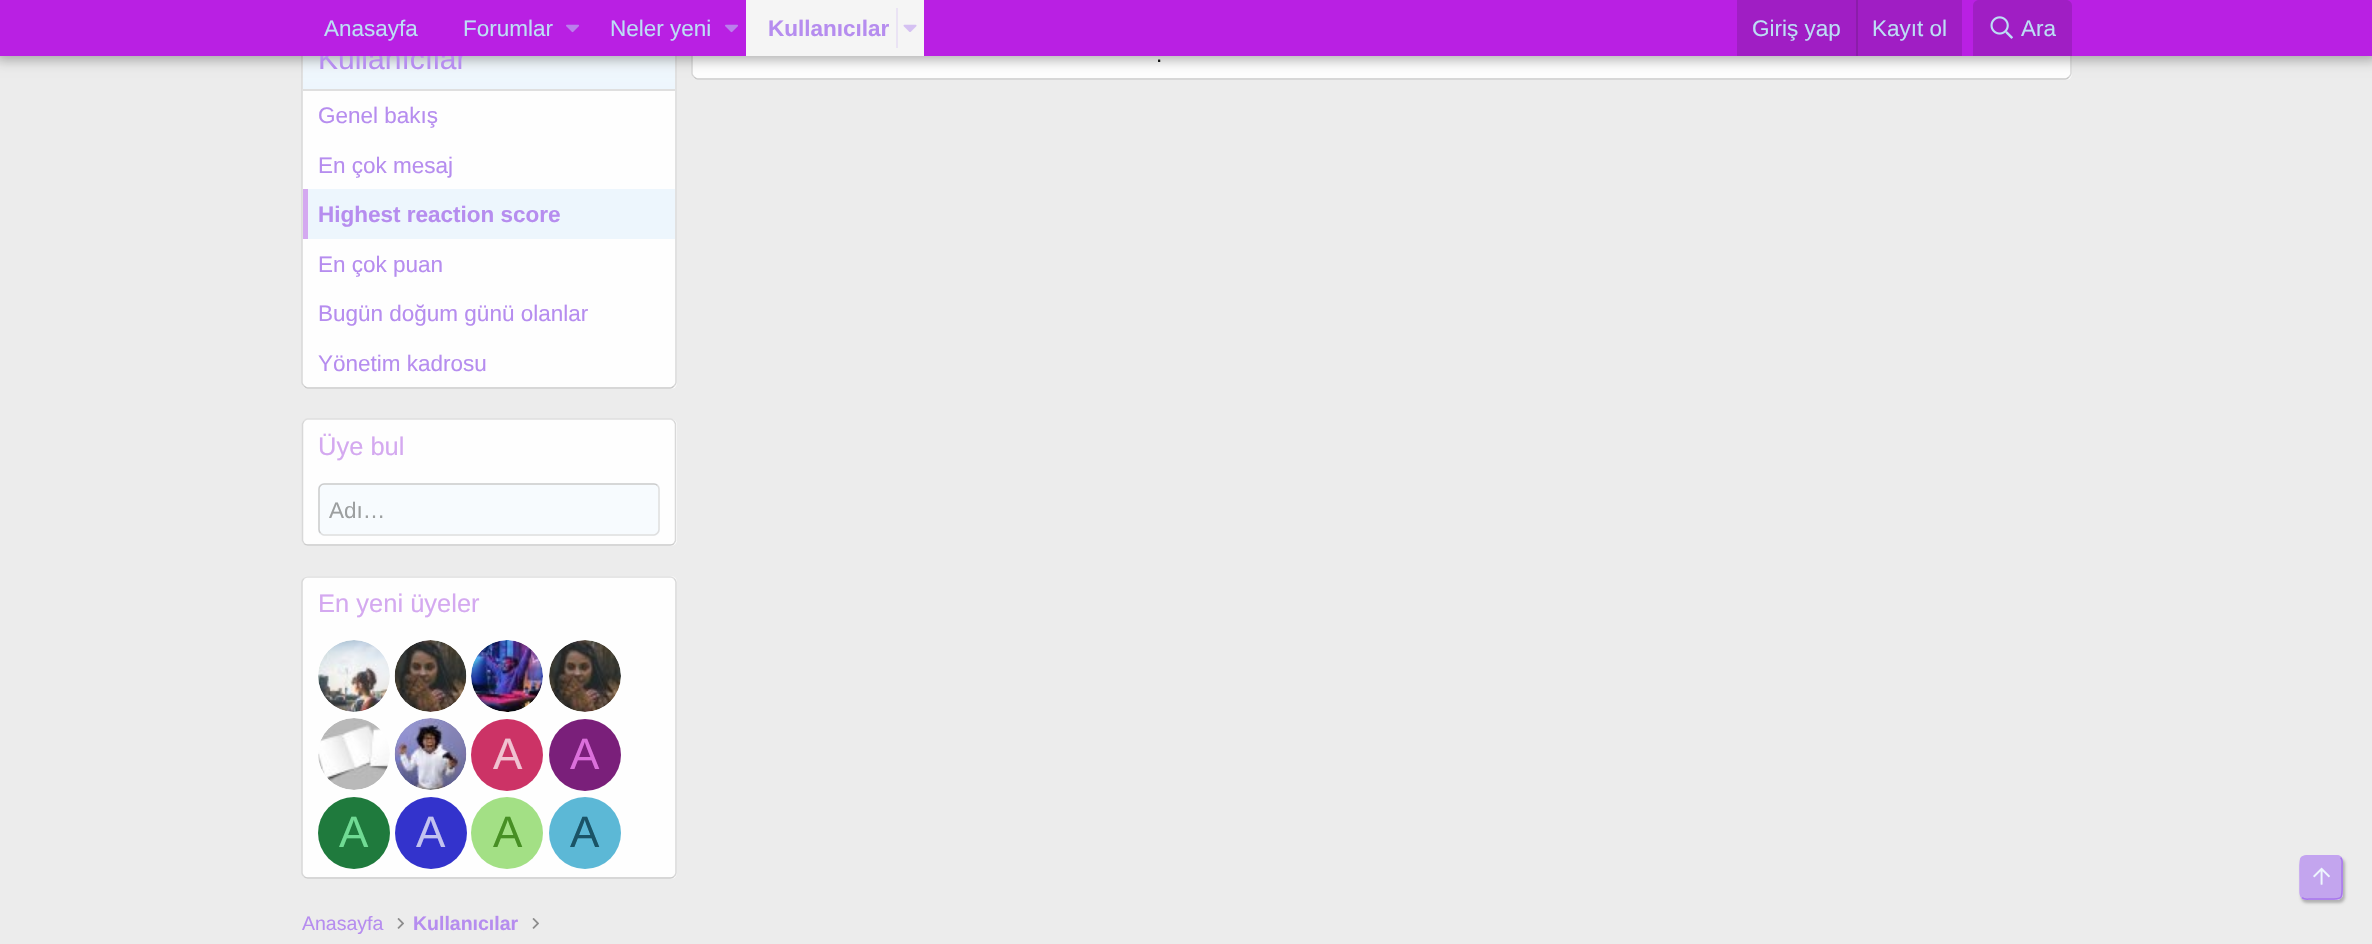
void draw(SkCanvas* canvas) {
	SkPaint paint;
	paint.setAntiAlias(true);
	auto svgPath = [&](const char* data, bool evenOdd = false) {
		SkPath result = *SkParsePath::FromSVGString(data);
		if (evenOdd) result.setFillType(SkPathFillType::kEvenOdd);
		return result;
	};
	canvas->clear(0xffececec);
	paint.setColor(0xfffefefe);
	canvas->drawRoundRect(SkRect::MakeXYWH(302, 27, 375, 362), 6, 6, paint);
	paint.setStroke(true);
	paint.setStrokeWidth(1.5);
	paint.setColor(0xffd8d8d8);
	canvas->drawPath(svgPath("M674 29.5C675 30.5 676 31.5 676 33V382.5C676 384 675 385 674 386"), paint);
	paint.setColor(0xffcbcbcb);
	canvas->drawPath(svgPath("M674 386C673 387 672 388 670.5 388H307.5C306 388 305 387 304 386"), paint);
	paint.setColor(0xffd8d8d8);
	canvas->drawPath(svgPath("M304 386C303 385 302 384 302 382.5V33C302 31.5 303 30.5 304 29.5"), paint);
	paint.setStroke(false);
	{
		const SkColor colors[] = {0xffedf6fd, 0xfff6fafe};
		const float stops[] = {0, 1};
		const SkPoint ends[] = {{489, 89}, {489, 29}};
		paint.setShader(SkGradientShader::MakeLinear(ends, colors, stops, 2, SkTileMode::kClamp));
		paint.setAlpha(255);
	}
	canvas->drawRect(SkRect::MakeXYWH(303, 56, 372, 33), paint);
	paint.setShader(nullptr);
	paint.setColor(0xfffefefe);
	canvas->drawRoundRect(SkRect::MakeXYWH(692, 27, 1380, 53), 6, 6, paint);
	paint.setStroke(true);
	paint.setColor(0xffd8d8d8);
	canvas->drawPath(svgPath("M2069 29.5C2070 30.5 2071 31.5 2071 33V73.5C2071 75 2070 76 2069 77"), paint);
	paint.setColor(0xffcbcbcb);
	canvas->drawPath(svgPath("M2069 77C2068 78 2067 79 2065.5 79H697.5C696 79 695 78 694 77"), paint);
	paint.setColor(0xffd8d8d8);
	canvas->drawPath(svgPath("M694 77C693 76 692 75 692 73.5V33C692 31.5 693 30.5 694 29.5"), paint);
	paint.setStroke(false);
	paint.setColor(0x4d000000);
	paint.setMaskFilter(SkMaskFilter::MakeBlur(kNormal_SkBlurStyle, 6));
	canvas->drawRect(SkRect::MakeXYWH(-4, -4, 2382, 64), paint);
	paint.setMaskFilter(nullptr);
	SkFont f1(fontMgr->matchFamilyStyle("Liberation Sans", SkFontStyle::Normal()), 30);
	f1.setSubpixel(true);
	paint.setColor(0xffb68def);
	canvas->drawString("Kullanıcılar", 318, 69, f1, paint);
	paint.setColor(0xffb920e3);
	canvas->drawRect(SkRect::MakeXYWH(0, 0, 2372, 56), paint);
	SkFont f2(fontMgr->matchFamilyStyle("Liberation Sans", SkFontStyle::Normal()), 22.5);
	f2.setSubpixel(true);
	paint.setColor(0xffbcdef5);
	canvas->drawString("Anasayfa", 324, 36, f2, paint);
	canvas->drawString("Forumlar", 463, 36, f2, paint);
	canvas->drawImageRect(SkImages::DeferredFromEncodedData(SkData::MakeFromFileName("img1.png")), SkRect::MakeXYWH(566, 24, 13, 9), SkSamplingOptions());
	canvas->drawString("Neler yeni", 610, 36, f2, paint);
	canvas->drawImageRect(SkImages::DeferredFromEncodedData(SkData::MakeFromFileName("img1.png")), SkRect::MakeXYWH(725, 24, 13, 9), SkSamplingOptions());
	paint.setColor(0xfff5f5f5);
	canvas->drawRect(SkRect::MakeXYWH(746, 0, 178, 56), paint);
	SkFont f3(fontMgr->matchFamilyStyle("Liberation Sans", SkFontStyle::Bold()), 22.5);
	f3.setSubpixel(true);
	paint.setColor(0xffb68def);
	canvas->drawString("Kullanıcılar", 768, 36, f3, paint);
	paint.setColor(0xffeae3f4);
	canvas->drawRect(SkRect::MakeXYWH(896, 8, 2, 40), paint);
	canvas->drawImageRect(SkImages::DeferredFromEncodedData(SkData::MakeFromFileName("img2.png")), SkRect::MakeXYWH(903, 24, 14, 8), SkSamplingOptions());
	paint.setColor(0xffa01ec4);
	canvas->drawRect(SkRect::MakeXYWH(1737, 0, 225, 56), paint);
	paint.setColor(0xffbcdef5);
	canvas->drawString("Giriş yap", 1752, 36, f2, paint);
	paint.setColor(0xff8b1daa);
	canvas->drawRect(SkRect::MakeXYWH(1856, 0, 2, 56), paint);
	paint.setColor(0xffbcdef5);
	canvas->drawString("Kayıt ol", 1872, 36, f2, paint);
	paint.setColor(0xffa01ec4);
	canvas->drawPath(svgPath("M1979 0H2066C2069.5 0 2072 2.5 2072 6V56H1973V6C1973 2.5 1975.5 0 1979 0Z"), paint);
	canvas->drawImageRect(SkImages::DeferredFromEncodedData(SkData::MakeFromFileName("img3.png")), SkRect::MakeXYWH(1990, 16, 23, 23), SkSamplingOptions());
	paint.setColor(0xffbcdef5);
	canvas->drawString("Ara", 2021, 36, f2, paint);
	paint.setColor(0xffdfdfdf);
	canvas->drawRect(SkRect::MakeXYWH(303, 89, 372, 2), paint);
	paint.setColor(0xffb68def);
	canvas->drawString("Genel bakış", 318, 123, f2, paint);
	canvas->drawString("En çok mesaj", 318, 173, f2, paint);
	paint.setColor(0xffedf6fd);
	canvas->drawRect(SkRect::MakeXYWH(308, 189, 367, 50), paint);
	paint.setColor(0xffd4a9f0);
	canvas->drawRect(SkRect::MakeXYWH(303, 189, 5, 50), paint);
	paint.setColor(0xffb68def);
	canvas->drawString("Highest reaction score", 318, 222, f3, paint);
	canvas->drawString("En çok puan", 318, 272, f2, paint);
	canvas->drawString("Bugün doğum günü olanlar", 318, 321, f2, paint);
	canvas->drawString("Yönetim kadrosu", 318, 371, f2, paint);
	paint.setColor(0xfffefefe);
	canvas->drawRoundRect(SkRect::MakeXYWH(302, 419, 375, 127), 6, 6, paint);
	paint.setStroke(true);
	paint.setColor(0xffdfdfdf);
	canvas->drawPath(svgPath("M304 421C305 420 306 419 307.5 419H670.5C672 419 673 420 674 421"), paint);
	paint.setColor(0xffd8d8d8);
	canvas->drawPath(svgPath("M674 421L675.5 424V540.5L674 543.5"), paint);
	paint.setColor(0xffcbcbcb);
	canvas->drawPath(svgPath("M674 543.5C673 544.5 672 545 670.5 545H307.5C306 545 305 544.5 304 543.5"), paint);
	paint.setColor(0xffd8d8d8);
	canvas->drawPath(svgPath("M304 543.5L302.5 540.5V424L304 421"), paint);
	SkFont f4(fontMgr->matchFamilyStyle("Liberation Sans", SkFontStyle::Normal()), 25.5);
	f4.setSubpixel(true);
	paint.setStroke(false);
	paint.setColor(0xffd4a9f0);
	canvas->drawString("Üye bul", 318, 455, f4, paint);
	paint.setColor(0xfff7fbfe);
	canvas->drawRoundRect(SkRect::MakeXYWH(318, 483, 342, 53), 6, 6, paint);
	paint.setStroke(true);
	paint.setColor(0xffdfdfdf);
	canvas->drawPath(svgPath("M657.5 485.5C658.5 486.5 659 487.5 659 489V529.5C659 531 658.5 532 657.5 533C656.5 534 655.5 535 654 535H324C322.5 535 321.5 534 320.5 533"), paint);
	paint.setColor(0xffcbcbcb);
	canvas->drawPath(svgPath("M320.5 533C319.5 532 319 531 319 529.5V489C319 487.5 319.5 486.5 320.5 485.5C321.5 484.5 322.5 484 324 484H654C655.5 484 656.5 484.5 657.5 485.5"), paint);
	paint.setStroke(false);
	paint.setColor(0xff9c9fa0);
	canvas->drawString("Adı…", 329, 518, f2, paint);
	paint.setColor(0xfffefefe);
	canvas->drawRoundRect(SkRect::MakeXYWH(302, 576, 375, 303), 6, 6, paint);
	paint.setStroke(true);
	paint.setColor(0xffdfdfdf);
	canvas->drawPath(svgPath("M304 578.5C305 577.5 306 577 307.5 577H670.5C672 577 673 577.5 674 578.5"), paint);
	paint.setColor(0xffd8d8d8);
	canvas->drawPath(svgPath("M674 578.5C675 579.5 676 580.5 676 582V873C676 874.5 675 875.5 674 876.5"), paint);
	paint.setColor(0xffcbcbcb);
	canvas->drawPath(svgPath("M674 876.5C673 877.5 672 878 670.5 878H307.5C306 878 305 877.5 304 876.5"), paint);
	paint.setColor(0xffd8d8d8);
	canvas->drawPath(svgPath("M304 876.5C303 875.5 302 874.5 302 873V582C302 580.5 303 579.5 304 578.5"), paint);
	paint.setStroke(false);
	paint.setColor(0xffd4a9f0);
	canvas->drawString("En yeni üyeler", 318, 612, f4, paint);
	canvas->drawImageRect(SkImages::DeferredFromEncodedData(SkData::MakeFromFileName("img4.png")), SkRect::MakeXYWH(318, 640, 72, 72), SkSamplingOptions());
	canvas->drawImageRect(SkImages::DeferredFromEncodedData(SkData::MakeFromFileName("img5.png")), SkRect::MakeXYWH(394, 640, 73, 72), SkSamplingOptions());
	canvas->drawImageRect(SkImages::DeferredFromEncodedData(SkData::MakeFromFileName("img6.png")), SkRect::MakeXYWH(471, 640, 72, 72), SkSamplingOptions());
	canvas->drawImageRect(SkImages::DeferredFromEncodedData(SkData::MakeFromFileName("img7.png")), SkRect::MakeXYWH(549, 640, 72, 72), SkSamplingOptions());
	canvas->drawImageRect(SkImages::DeferredFromEncodedData(SkData::MakeFromFileName("img8.png")), SkRect::MakeXYWH(318, 718, 72, 72), SkSamplingOptions());
	canvas->drawImageRect(SkImages::DeferredFromEncodedData(SkData::MakeFromFileName("img9.png")), SkRect::MakeXYWH(394, 718, 73, 72), SkSamplingOptions());
	paint.setColor(0xffcc3366);
	canvas->drawCircle(507, 755, 36, paint);
	SkFont f5(fontMgr->matchFamilyStyle("Liberation Sans", SkFontStyle::Normal()), 44);
	f5.setSubpixel(true);
	paint.setColor(0xfff0c2d1);
	canvas->drawString("A", 493, 769, f5, paint);
	paint.setColor(0xff7a1f7a);
	canvas->drawCircle(585, 755, 36, paint);
	paint.setColor(0xffdb70db);
	canvas->drawString("A", 570, 769, f5, paint);
	paint.setColor(0xff1f7a3d);
	canvas->drawCircle(354, 833, 36, paint);
	paint.setColor(0xff70db94);
	canvas->drawString("A", 339, 847, f5, paint);
	paint.setColor(0xff3333cc);
	canvas->drawCircle(431, 833, 36, paint);
	paint.setColor(0xffc2c2f0);
	canvas->drawString("A", 416, 847, f5, paint);
	paint.setColor(0xffa3e085);
	canvas->drawCircle(507, 833, 36, paint);
	paint.setColor(0xff478f24);
	canvas->drawString("A", 493, 847, f5, paint);
	paint.setColor(0xff5cb8d6);
	canvas->drawCircle(585, 833, 36, paint);
	paint.setColor(0xff1a5366);
	canvas->drawString("A", 570, 847, f5, paint);
	paint.setColor(0xff141414);
	canvas->drawString(".", 1156, 62, f2, paint);
	SkFont f6(fontMgr->matchFamilyStyle("Liberation Sans", SkFontStyle::Normal()), 19.5);
	f6.setSubpixel(true);
	paint.setColor(0xffb68def);
	canvas->drawString("Anasayfa", 302, 930, f6, paint);
	canvas->drawImageRect(SkImages::DeferredFromEncodedData(SkData::MakeFromFileName("img10.png")), SkRect::MakeXYWH(397, 918, 7, 11), SkSamplingOptions());
	SkFont f7(fontMgr->matchFamilyStyle("Liberation Sans", SkFontStyle::Bold()), 19.5);
	f7.setSubpixel(true);
	canvas->drawString("Kullanıcılar", 413, 930, f7, paint);
	canvas->drawImageRect(SkImages::DeferredFromEncodedData(SkData::MakeFromFileName("img10.png")), SkRect::MakeXYWH(532, 918, 7, 11), SkSamplingOptions());
	canvas->save();
	canvas->clipPath(svgPath("M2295 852H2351V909H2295ZM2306 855H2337C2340.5 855 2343 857.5 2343 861V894C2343 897.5 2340.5 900 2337 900H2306C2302.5 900 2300 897.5 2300 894V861C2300 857.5 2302.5 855 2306 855Z", true), true);
	paint.setColor(0x40000000);
	paint.setMaskFilter(SkMaskFilter::MakeBlur(kNormal_SkBlurStyle, 1.5));
	canvas->drawRoundRect(SkRect::MakeXYWH(2301, 858, 44, 45), 6, 6, paint);
	paint.setMaskFilter(nullptr);
	canvas->restore();
	paint.setColor(0xbfb68def);
	canvas->drawRoundRect(SkRect::MakeXYWH(2300, 855, 43, 45), 6, 6, paint);
	paint.setStroke(true);
	paint.setColor(0xffa877ec);
	canvas->drawPath(svgPath("M2340.5 857.5C2343 859.5 2342 863.5 2342 866.5V877.5C2342 902 2345.5 899 2321 899H2311C2308 899 2304 900 2302 897.5"), paint);
	paint.setColor(0xffc4a3f2);
	canvas->drawPath(svgPath("M2302 897.5C2299.5 895.5 2300 891.5 2300 888.5V877.5C2300 853 2297 856 2321 856H2332C2334.5 856 2338.5 855 2340.5 857.5"), paint);
	canvas->drawImageRect(SkImages::DeferredFromEncodedData(SkData::MakeFromFileName("img11.png")), SkRect::MakeXYWH(2313, 867, 17, 18), SkSamplingOptions());
}
